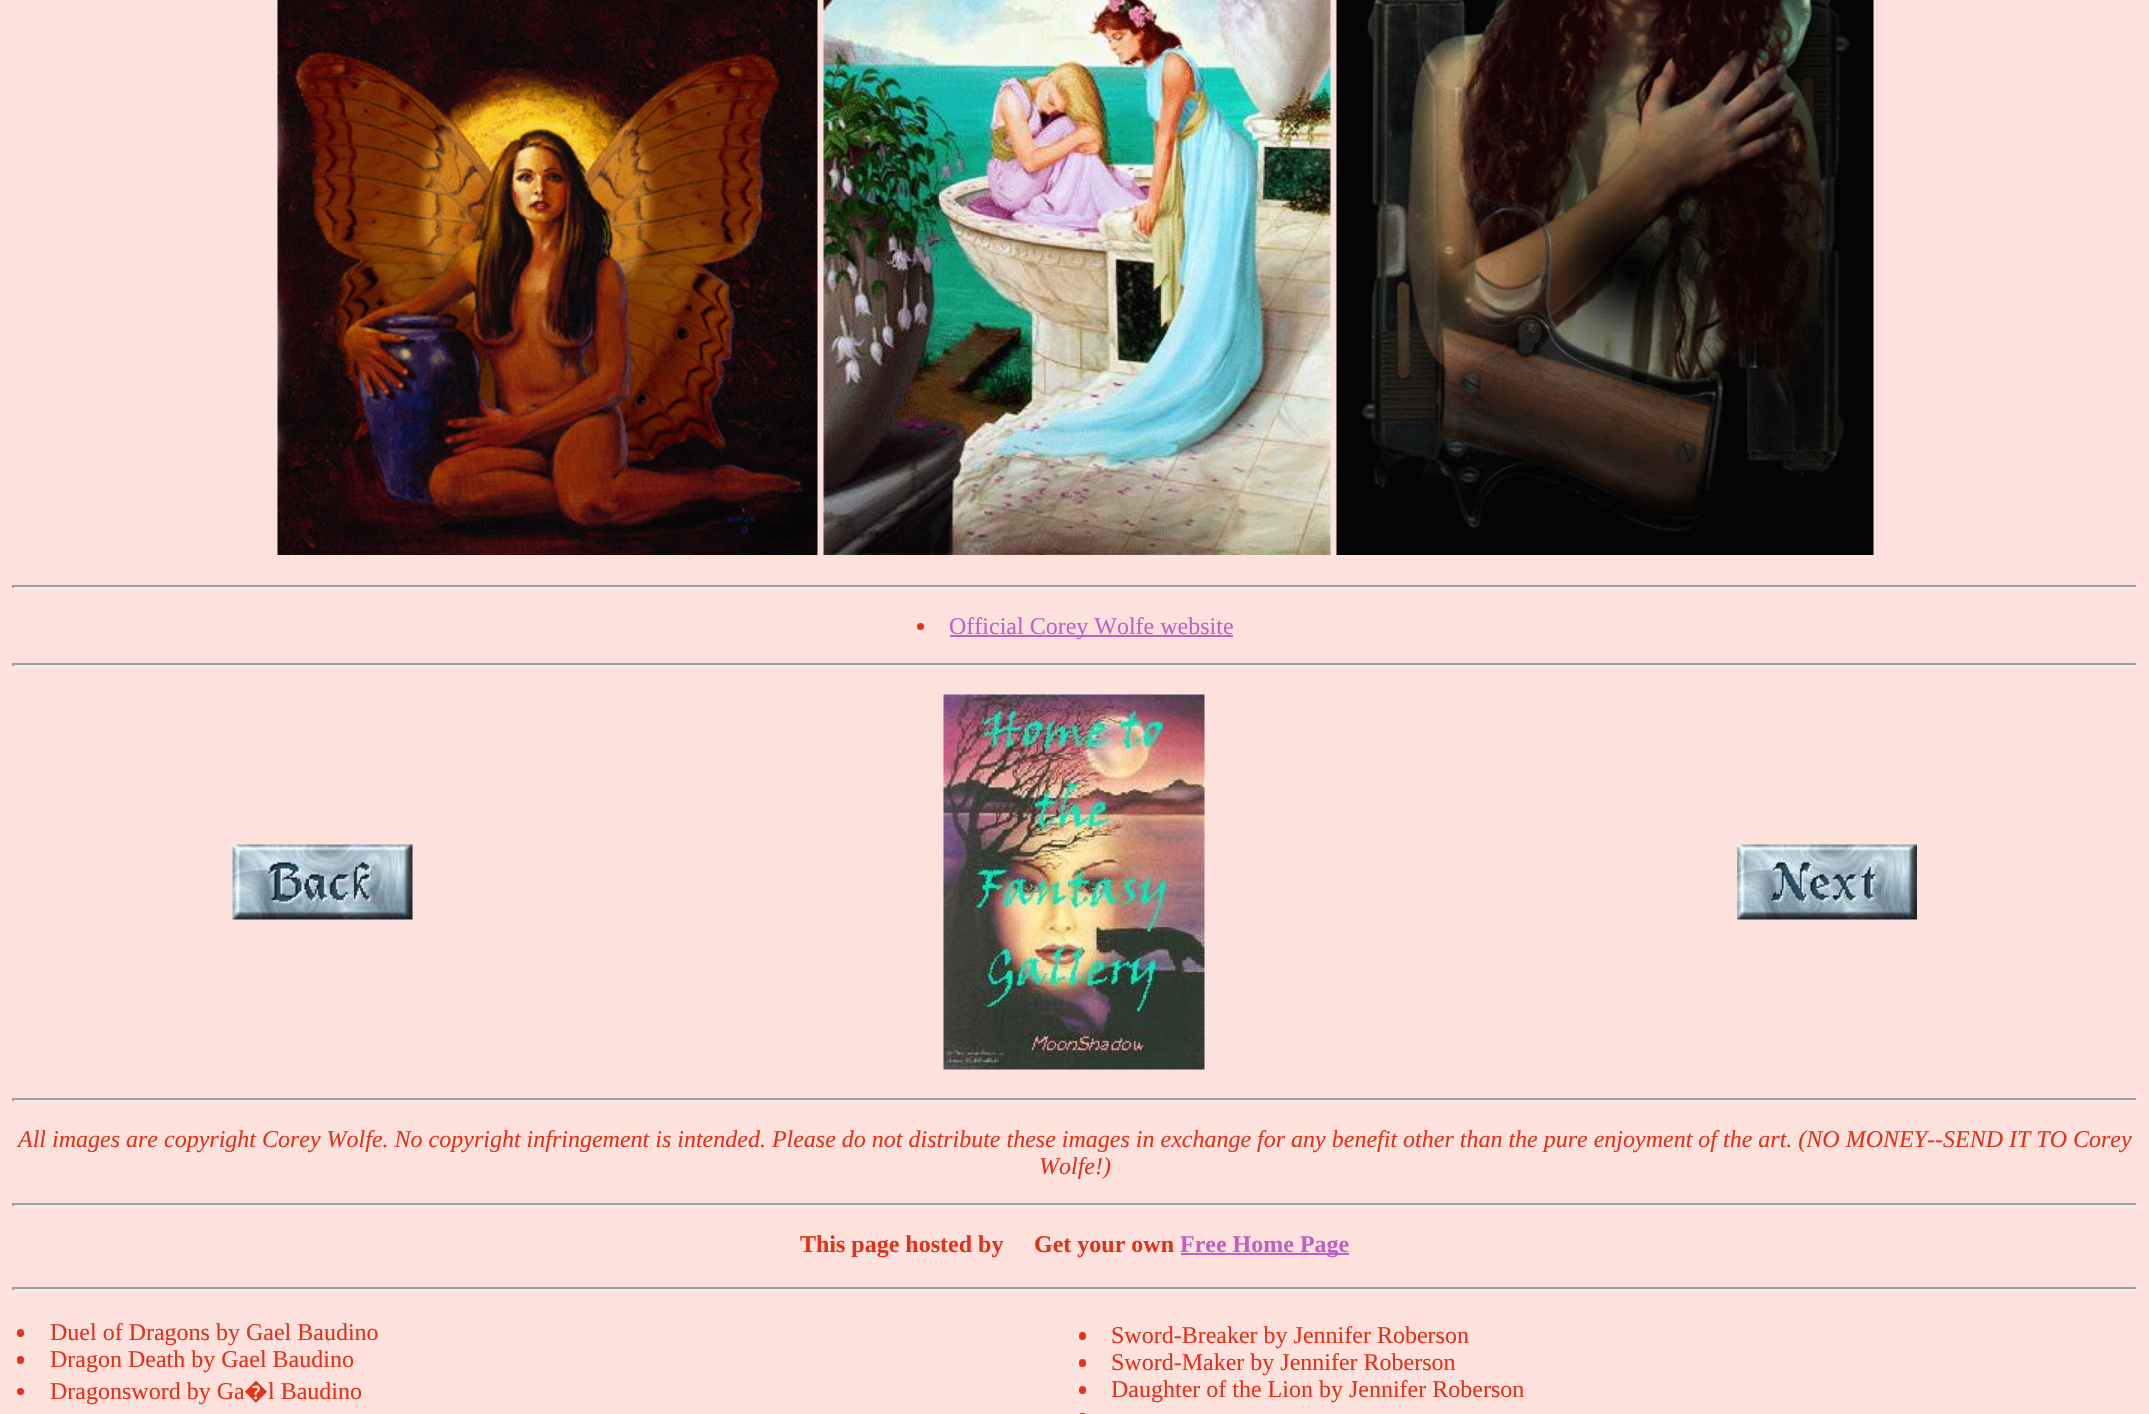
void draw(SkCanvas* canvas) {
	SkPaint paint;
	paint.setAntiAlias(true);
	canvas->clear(0xfffde1dd);
	canvas->drawImageRect(SkImages::DeferredFromEncodedData(SkData::MakeFromFileName("img1.png")), SkRect::MakeXYWH(277, 0, 541, 555), SkSamplingOptions());
	canvas->drawImageRect(SkImages::DeferredFromEncodedData(SkData::MakeFromFileName("img2.png")), SkRect::MakeXYWH(823, 0, 508, 555), SkSamplingOptions());
	canvas->drawImageRect(SkImages::DeferredFromEncodedData(SkData::MakeFromFileName("img3.png")), SkRect::MakeXYWH(1336, 0, 538, 555), SkSamplingOptions());
	paint.setColor(0xff9f9f9f);
	canvas->drawRect(SkRect::MakeXYWH(12, 585, 2126, 2), paint);
	paint.setColor(0xffeeeeee);
	canvas->drawRect(SkRect::MakeXYWH(2136, 585, 2, 3), paint);
	canvas->drawRect(SkRect::MakeXYWH(12, 587, 2126, 2), paint);
	paint.setColor(0xff9f9f9f);
	canvas->drawRect(SkRect::MakeXYWH(12, 585, 2, 3), paint);
	paint.setColor(0xffe43117);
	canvas->drawCircle(920.5, 626.5, 3.5, paint);
	paint.setColor(0xffc160c3);
	canvas->drawRect(SkRect::MakeXYWH(950, 635, 283, 2), paint);
	SkFont f1(fontMgr->matchFamilyStyle("Liberation Serif", SkFontStyle::Normal()), 24);
	f1.setSubpixel(true);
	canvas->drawString("Official Corey Wolfe website", 949, 634, f1, paint);
	paint.setColor(0xff9f9f9f);
	canvas->drawRect(SkRect::MakeXYWH(12, 663, 2126, 2), paint);
	paint.setColor(0xffeeeeee);
	canvas->drawRect(SkRect::MakeXYWH(2136, 663, 2, 3), paint);
	canvas->drawRect(SkRect::MakeXYWH(12, 665, 2126, 2), paint);
	paint.setColor(0xff9f9f9f);
	canvas->drawRect(SkRect::MakeXYWH(12, 663, 2, 3), paint);
	canvas->drawImageRect(SkImages::DeferredFromEncodedData(SkData::MakeFromFileName("img4.png")), SkRect::MakeXYWH(232, 844, 181, 76), SkSamplingOptions());
	canvas->drawImageRect(SkImages::DeferredFromEncodedData(SkData::MakeFromFileName("img5.png")), SkRect::MakeXYWH(943, 694, 262, 376), SkSamplingOptions());
	canvas->drawImageRect(SkImages::DeferredFromEncodedData(SkData::MakeFromFileName("img6.png")), SkRect::MakeXYWH(1737, 844, 180, 76), SkSamplingOptions());
	canvas->drawRect(SkRect::MakeXYWH(12, 1098, 2126, 2), paint);
	paint.setColor(0xffeeeeee);
	canvas->drawRect(SkRect::MakeXYWH(2136, 1098, 2, 3), paint);
	canvas->drawRect(SkRect::MakeXYWH(12, 1100, 2126, 2), paint);
	paint.setColor(0xff9f9f9f);
	canvas->drawRect(SkRect::MakeXYWH(12, 1098, 2, 3), paint);
	SkFont f2(fontMgr->matchFamilyStyle("Liberation Serif", SkFontStyle::Italic()), 24);
	f2.setSubpixel(true);
	paint.setColor(0xffe43117);
	canvas->drawString("All images are copyright Corey Wolfe. No copyright infringement is intended. Please do not distribute these images in exchange for any benefit other than the pure enjoyment of the art. (NO MONEY--SEND IT TO Corey", 18, 1147, f2, paint);
	canvas->drawString("Wolfe!)", 1039, 1174, f2, paint);
	paint.setColor(0xff9f9f9f);
	canvas->drawRect(SkRect::MakeXYWH(12, 1203, 2126, 2), paint);
	paint.setColor(0xffeeeeee);
	canvas->drawRect(SkRect::MakeXYWH(2136, 1203, 2, 3), paint);
	canvas->drawRect(SkRect::MakeXYWH(12, 1205, 2126, 2), paint);
	paint.setColor(0xff9f9f9f);
	canvas->drawRect(SkRect::MakeXYWH(12, 1203, 2, 3), paint);
	SkFont f3(fontMgr->matchFamilyStyle("Liberation Serif", SkFontStyle::Bold()), 24);
	f3.setSubpixel(true);
	paint.setColor(0xffe43117);
	canvas->drawString("This page hosted by", 800, 1252, f3, paint);
	canvas->drawString("Get your own", 1034, 1252, f3, paint);
	paint.setColor(0xffc160c3);
	canvas->drawRect(SkRect::MakeXYWH(1181, 1253, 168, 2), paint);
	canvas->drawString("Free Home Page", 1180, 1252, f3, paint);
	paint.setColor(0xff9f9f9f);
	canvas->drawRect(SkRect::MakeXYWH(12, 1287, 2126, 2), paint);
	paint.setColor(0xffeeeeee);
	canvas->drawRect(SkRect::MakeXYWH(2136, 1287, 2, 3), paint);
	canvas->drawRect(SkRect::MakeXYWH(12, 1289, 2126, 2), paint);
	paint.setColor(0xff9f9f9f);
	canvas->drawRect(SkRect::MakeXYWH(12, 1287, 2, 3), paint);
	paint.setColor(0xffe43117);
	canvas->drawRoundRect(SkRect::MakeXYWH(17, 1329, 7, 8), 3.5, 3.5, paint);
	canvas->drawString("Duel of Dragons by Gael Baudino", 50, 1340, f1, paint);
	canvas->drawRoundRect(SkRect::MakeXYWH(17, 1356, 7, 8), 3.5, 3.5, paint);
	canvas->drawString("Dragon Death by Gael Baudino", 50, 1367, f1, paint);
	canvas->drawCircle(20.5, 1391.5, 3.5, paint);
	canvas->drawString("Dragonsword by Ga", 50, 1399, f1, paint);
	SkFont f4(fontMgr->matchFamilyStyle("Noto Sans", SkFontStyle::Normal()), 24);
	f4.setSubpixel(true);
	canvas->drawString("�", 244, 1399, f4, paint);
	canvas->drawString("l Baudino", 268, 1399, f1, paint);
	canvas->drawRoundRect(SkRect::MakeXYWH(1079, 1332, 7, 8), 3.5, 3.5, paint);
	canvas->drawString("Sword-Breaker by Jennifer Roberson", 1111, 1343, f1, paint);
	canvas->drawRoundRect(SkRect::MakeXYWH(1079, 1359, 7, 8), 3.5, 3.5, paint);
	canvas->drawString("Sword-Maker by Jennifer Roberson", 1111, 1370, f1, paint);
	canvas->drawRoundRect(SkRect::MakeXYWH(1079, 1386, 7, 8), 3.5, 3.5, paint);
	canvas->drawString("Daughter of the Lion by Jennifer Roberson", 1111, 1397, f1, paint);
	canvas->drawRoundRect(SkRect::MakeXYWH(1079, 1413, 7, 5), 3.5, 3.5, paint);
}
